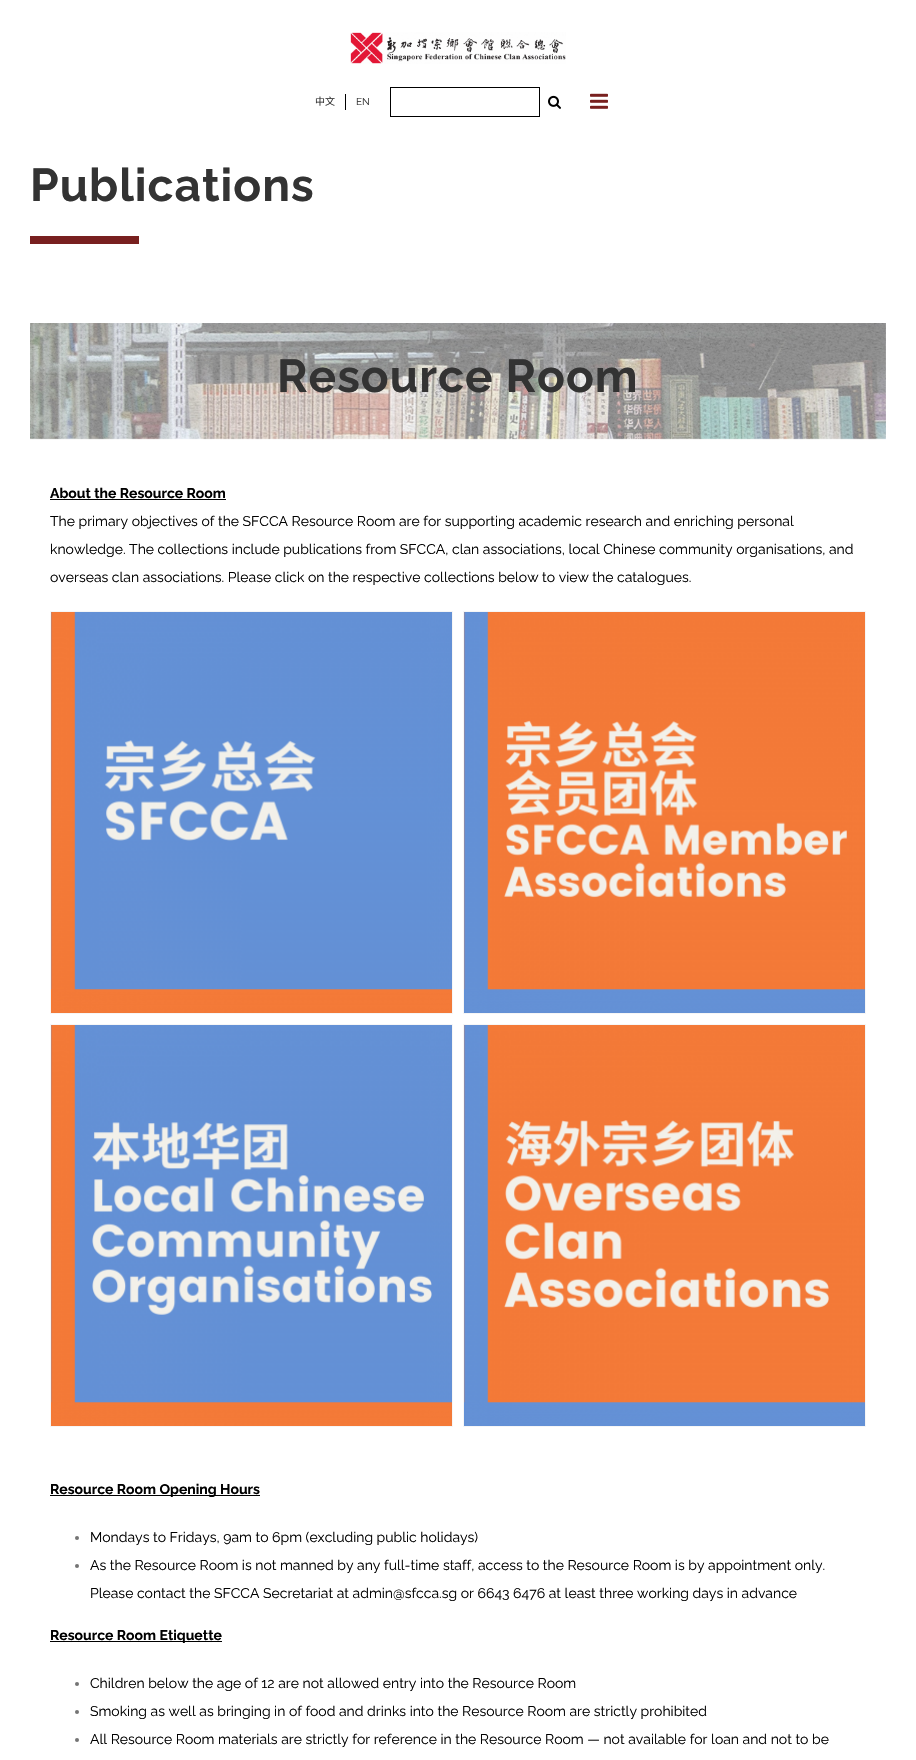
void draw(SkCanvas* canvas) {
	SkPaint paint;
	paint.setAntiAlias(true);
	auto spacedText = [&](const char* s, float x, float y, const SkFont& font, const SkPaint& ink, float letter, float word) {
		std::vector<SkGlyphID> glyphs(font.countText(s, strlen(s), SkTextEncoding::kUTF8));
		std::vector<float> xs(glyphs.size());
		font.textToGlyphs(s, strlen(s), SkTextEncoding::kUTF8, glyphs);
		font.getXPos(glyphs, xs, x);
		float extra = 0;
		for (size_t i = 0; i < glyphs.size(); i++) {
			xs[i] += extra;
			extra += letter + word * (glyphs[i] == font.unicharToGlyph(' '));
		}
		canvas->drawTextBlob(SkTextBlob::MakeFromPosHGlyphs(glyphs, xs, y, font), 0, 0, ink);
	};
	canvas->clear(0xffffffff);
	canvas->drawImageRect(SkImages::DeferredFromEncodedData(SkData::MakeFromFileName("img1.png")), SkRect::MakeXYWH(350, 32, 216, 32), SkSamplingOptions());
	paint.setColor(0xff000000);
	canvas->drawRect(SkRect::MakeXYWH(345, 94, 1, 16), paint);
	SkFont f1(fontMgr->matchFamilyStyle("Noto Sans CJK SC", SkFontStyle::Normal()), 10);
	f1.setSubpixel(true);
	paint.setColor(0xff333333);
	canvas->drawString("中文", 315, 105, f1, paint);
	SkFont f2(fontMgr->matchFamilyStyle("Raleway", SkFontStyle::Normal()), 10);
	f2.setSubpixel(true);
	canvas->drawString("EN", 356, 105, f2, paint);
	paint.setStroke(true);
	paint.setStrokeWidth(1);
	paint.setColor(0xff000000);
	canvas->drawRect(SkRect::MakeXYWH(390.5, 87.5, 149, 29), paint);
	canvas->drawImageRect(SkImages::DeferredFromEncodedData(SkData::MakeFromFileName("img2.png")), SkRect::MakeXYWH(548, 95, 13, 14), SkSamplingOptions());
	canvas->drawImageRect(SkImages::DeferredFromEncodedData(SkData::MakeFromFileName("img3.png")), SkRect::MakeXYWH(590, 93, 18, 16), SkSamplingOptions());
	SkFont f3(fontMgr->matchFamilyStyle("Raleway", SkFontStyle::Bold()), 46);
	f3.setSubpixel(true);
	paint.setStroke(false);
	paint.setColor(0xff333333);
	spacedText("Publications", 30, 201, f3, paint, 1, 0);
	paint.setColor(0xff78201f);
	canvas->drawRect(SkRect::MakeXYWH(30, 236, 109, 8), paint);
	canvas->drawImageRect(SkImages::DeferredFromEncodedData(SkData::MakeFromFileName("img4.png")), SkRect::MakeXYWH(30, 323, 856, 117), SkSamplingOptions());
	paint.setColor(0xff333333);
	spacedText("Resource Room", 277, 392, f3, paint, 1, 0);
	SkFont f4(fontMgr->matchFamilyStyle("Raleway", SkFontStyle::Bold()), 14);
	f4.setSubpixel(true);
	paint.setColor(0xff000000);
	canvas->drawString("About the Resource Room", 50, 498, f4, paint);
	canvas->drawRect(SkRect::MakeXYWH(50, 499, 176, 1), paint);
	SkFont f5(fontMgr->matchFamilyStyle("Raleway", SkFontStyle::Normal()), 14);
	f5.setSubpixel(true);
	canvas->drawString("The primary objectives of the SFCCA Resource Room are for supporting academic research and enriching personal", 50, 526, f5, paint);
	canvas->drawString("knowledge. The collections include publications from SFCCA, clan associations, local Chinese community organisations, and", 50, 554, f5, paint);
	canvas->drawString("overseas clan associations. Please click on the respective collections below to view the catalogues.", 50, 582, f5, paint);
	paint.setStroke(true);
	paint.setColor(0xfff6f6f6);
	canvas->drawRect(SkRect::MakeXYWH(50.5, 611.5, 402, 402), paint);
	canvas->drawImageRect(SkImages::DeferredFromEncodedData(SkData::MakeFromFileName("img5.png")), SkRect::MakeXYWH(51, 612, 401, 401), SkSamplingOptions());
	canvas->drawRect(SkRect::MakeXYWH(463.5, 611.5, 402, 402), paint);
	canvas->drawImageRect(SkImages::DeferredFromEncodedData(SkData::MakeFromFileName("img6.png")), SkRect::MakeXYWH(464, 612, 401, 401), SkSamplingOptions());
	canvas->drawRect(SkRect::MakeXYWH(50.5, 1024.5, 402, 402), paint);
	canvas->drawImageRect(SkImages::DeferredFromEncodedData(SkData::MakeFromFileName("img7.png")), SkRect::MakeXYWH(51, 1025, 401, 401), SkSamplingOptions());
	canvas->drawRect(SkRect::MakeXYWH(463.5, 1024.5, 402, 402), paint);
	canvas->drawImageRect(SkImages::DeferredFromEncodedData(SkData::MakeFromFileName("img8.png")), SkRect::MakeXYWH(464, 1025, 401, 401), SkSamplingOptions());
	paint.setStroke(false);
	paint.setColor(0xff000000);
	canvas->drawRect(SkRect::MakeXYWH(50, 1495, 210, 1), paint);
	canvas->drawString("Resource Room Opening Hours", 50, 1494, f4, paint);
	paint.setColor(0xff747474);
	canvas->drawCircle(77, 1538, 2, paint);
	paint.setColor(0xff000000);
	canvas->drawString("Mondays to Fridays, 9am to 6pm (excluding public holidays)", 90, 1542, f5, paint);
	paint.setColor(0xff747474);
	canvas->drawCircle(77, 1566, 2, paint);
	paint.setColor(0xff000000);
	canvas->drawString("As the Resource Room is not manned by any full-time staff, access to the Resource Room is by appointment only.", 90, 1570, f5, paint);
	canvas->drawString("Please contact the SFCCA Secretariat at admin@sfcca.sg or 6643 6476 at least three working days in advance", 90, 1598, f5, paint);
	canvas->drawRect(SkRect::MakeXYWH(50, 1641, 172, 1), paint);
	canvas->drawString("Resource Room Etiquette", 50, 1640, f4, paint);
	paint.setColor(0xff747474);
	canvas->drawCircle(77, 1684, 2, paint);
	paint.setColor(0xff000000);
	canvas->drawString("Children below the age of 12 are not allowed entry into the Resource Room", 90, 1688, f5, paint);
	paint.setColor(0xff747474);
	canvas->drawCircle(77, 1712, 2, paint);
	paint.setColor(0xff000000);
	canvas->drawString("Smoking as well as bringing in of food and drinks into the Resource Room are strictly prohibited", 90, 1716, f5, paint);
	paint.setColor(0xff747474);
	canvas->drawCircle(77, 1740, 2, paint);
	paint.setColor(0xff000000);
	canvas->drawString("All Resource Room materials are strictly for reference in the Resource Room — not available for loan and not to be", 90, 1744, f5, paint);
}
